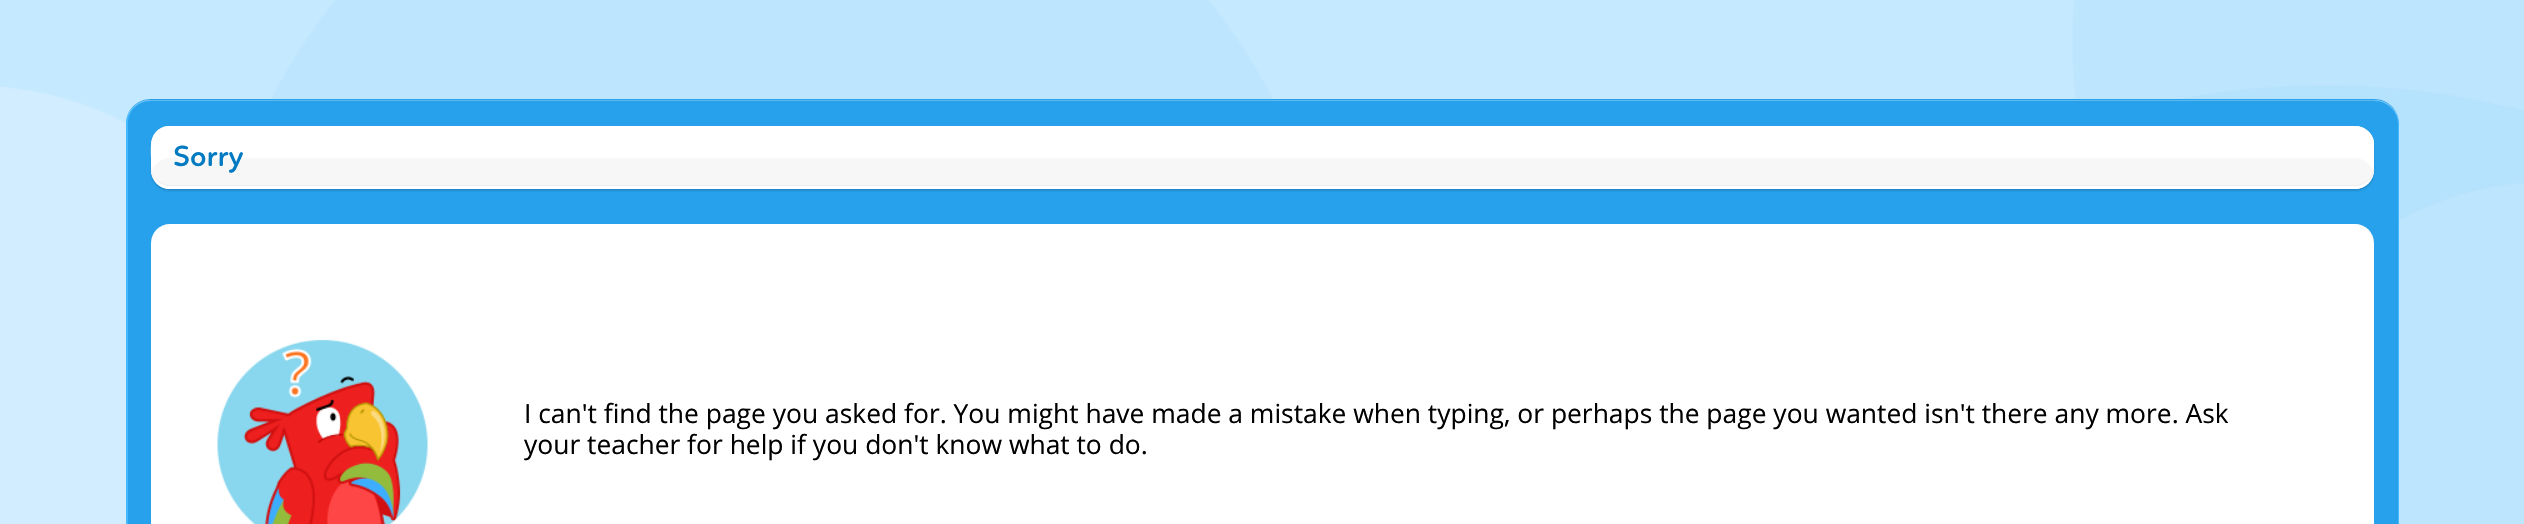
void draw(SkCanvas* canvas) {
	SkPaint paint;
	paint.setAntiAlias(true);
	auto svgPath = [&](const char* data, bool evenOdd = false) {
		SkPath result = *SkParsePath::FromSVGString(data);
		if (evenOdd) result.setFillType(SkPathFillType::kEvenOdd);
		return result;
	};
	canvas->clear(0xffffffff);
	canvas->drawImageRect(SkImages::DeferredFromEncodedData(SkData::MakeFromFileName("img1.png")), SkRect::MakeXYWH(0, 0, 2524, 524), SkSamplingOptions());
	paint.setColor(0xff27a1ec);
	canvas->drawPath(svgPath("M151 99C137 99 126 110 126 124V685L127 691L126 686V125C126 111 137 100 151 100H2374C2388 100 2399 111 2399 125V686L2398 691L2399 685V124C2399 110 2388 99 2374 99Z"), paint);
	canvas->drawRoundRect(SkRect::MakeXYWH(126, 100, 2273, 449), 25, 25, paint);
	paint.setColor(0xff43b8fe);
	canvas->drawPath(svgPath("M151 100C137 100 126 111 126 125V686C126 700 137 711 151 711H2374C2388 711 2399 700 2399 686V125C2399 111 2388 100 2374 100C2387 100 2398 111 2398 124V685C2398 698 2387 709 2374 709H151C138 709 128 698 128 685V124C128 111 138 100 151 100Z"), paint);
	paint.setColor(0x40ffffff);
	canvas->drawPath(svgPath("M151 101H2374C2388 101 2399 112 2399 126V125C2399 111 2388 100 2374 100H151C137 100 126 111 126 125V126C126 112 137 101 151 101Z"), paint);
	paint.setColor(0x26000000);
	paint.setMaskFilter(SkMaskFilter::MakeBlur(kNormal_SkBlurStyle, 1));
	canvas->drawRoundRect(SkRect::MakeXYWH(151, 129, 2223, 62), 19, 19, paint);
	paint.setMaskFilter(nullptr);
	paint.setColor(0xfff7f7f7);
	canvas->drawRoundRect(SkRect::MakeXYWH(151, 126, 2223, 63), 19, 19, paint);
	paint.setColor(0xffffffff);
	canvas->drawPath(svgPath("M170 158H2355C2364 158 2372 165 2374 173V141C2372 132 2364 126 2355 126H170C167 126 165 126 163 127C149 133 151 146 151 158V173C153 165 161 158 170 158Z"), paint);
	paint.setColor(0xffededed);
	canvas->drawPath(svgPath("M151 166V170C151 180 160 189 170 189H2355C2365 189 2374 180 2374 170V166C2374 177 2365 185 2355 185H170C160 185 151 177 151 166Z"), paint);
	paint.setColor(0xffffffff);
	canvas->drawPath(svgPath("M151 168C151 179 158 189 170 189H2355C2367 189 2374 179 2374 168C2374 178 2365 186 2355 186H170C160 186 151 178 151 168Z"), paint);
	SkFont f1(fontMgr->matchFamilyStyle("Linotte", SkFontStyle(600, SkFontStyle::kNormal_Width, SkFontStyle::kUpright_Slant)), 30);
	f1.setSubpixel(true);
	paint.setColor(0xff017ac1);
	canvas->drawString("Sorry", 173, 166, f1, paint);
	paint.setColor(0xffffffff);
	canvas->drawRoundRect(SkRect::MakeXYWH(151, 224, 2223, 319), 19, 19, paint);
	canvas->drawImageRect(SkImages::DeferredFromEncodedData(SkData::MakeFromFileName("img2.png")), SkRect::MakeXYWH(217, 339, 211, 185), SkSamplingOptions());
	SkFont f2(fontMgr->matchFamilyStyle("Open Sans", SkFontStyle::Normal()), 26.4);
	f2.setSubpixel(true);
	paint.setColor(0xff000000);
	canvas->drawString("I can't find the page you asked for. You might have made a mistake when typing, or perhaps the page you wanted isn't there any more. Ask", 524, 423, f2, paint);
	canvas->drawString("your teacher for help if you don't know what to do.", 524, 454, f2, paint);
}
